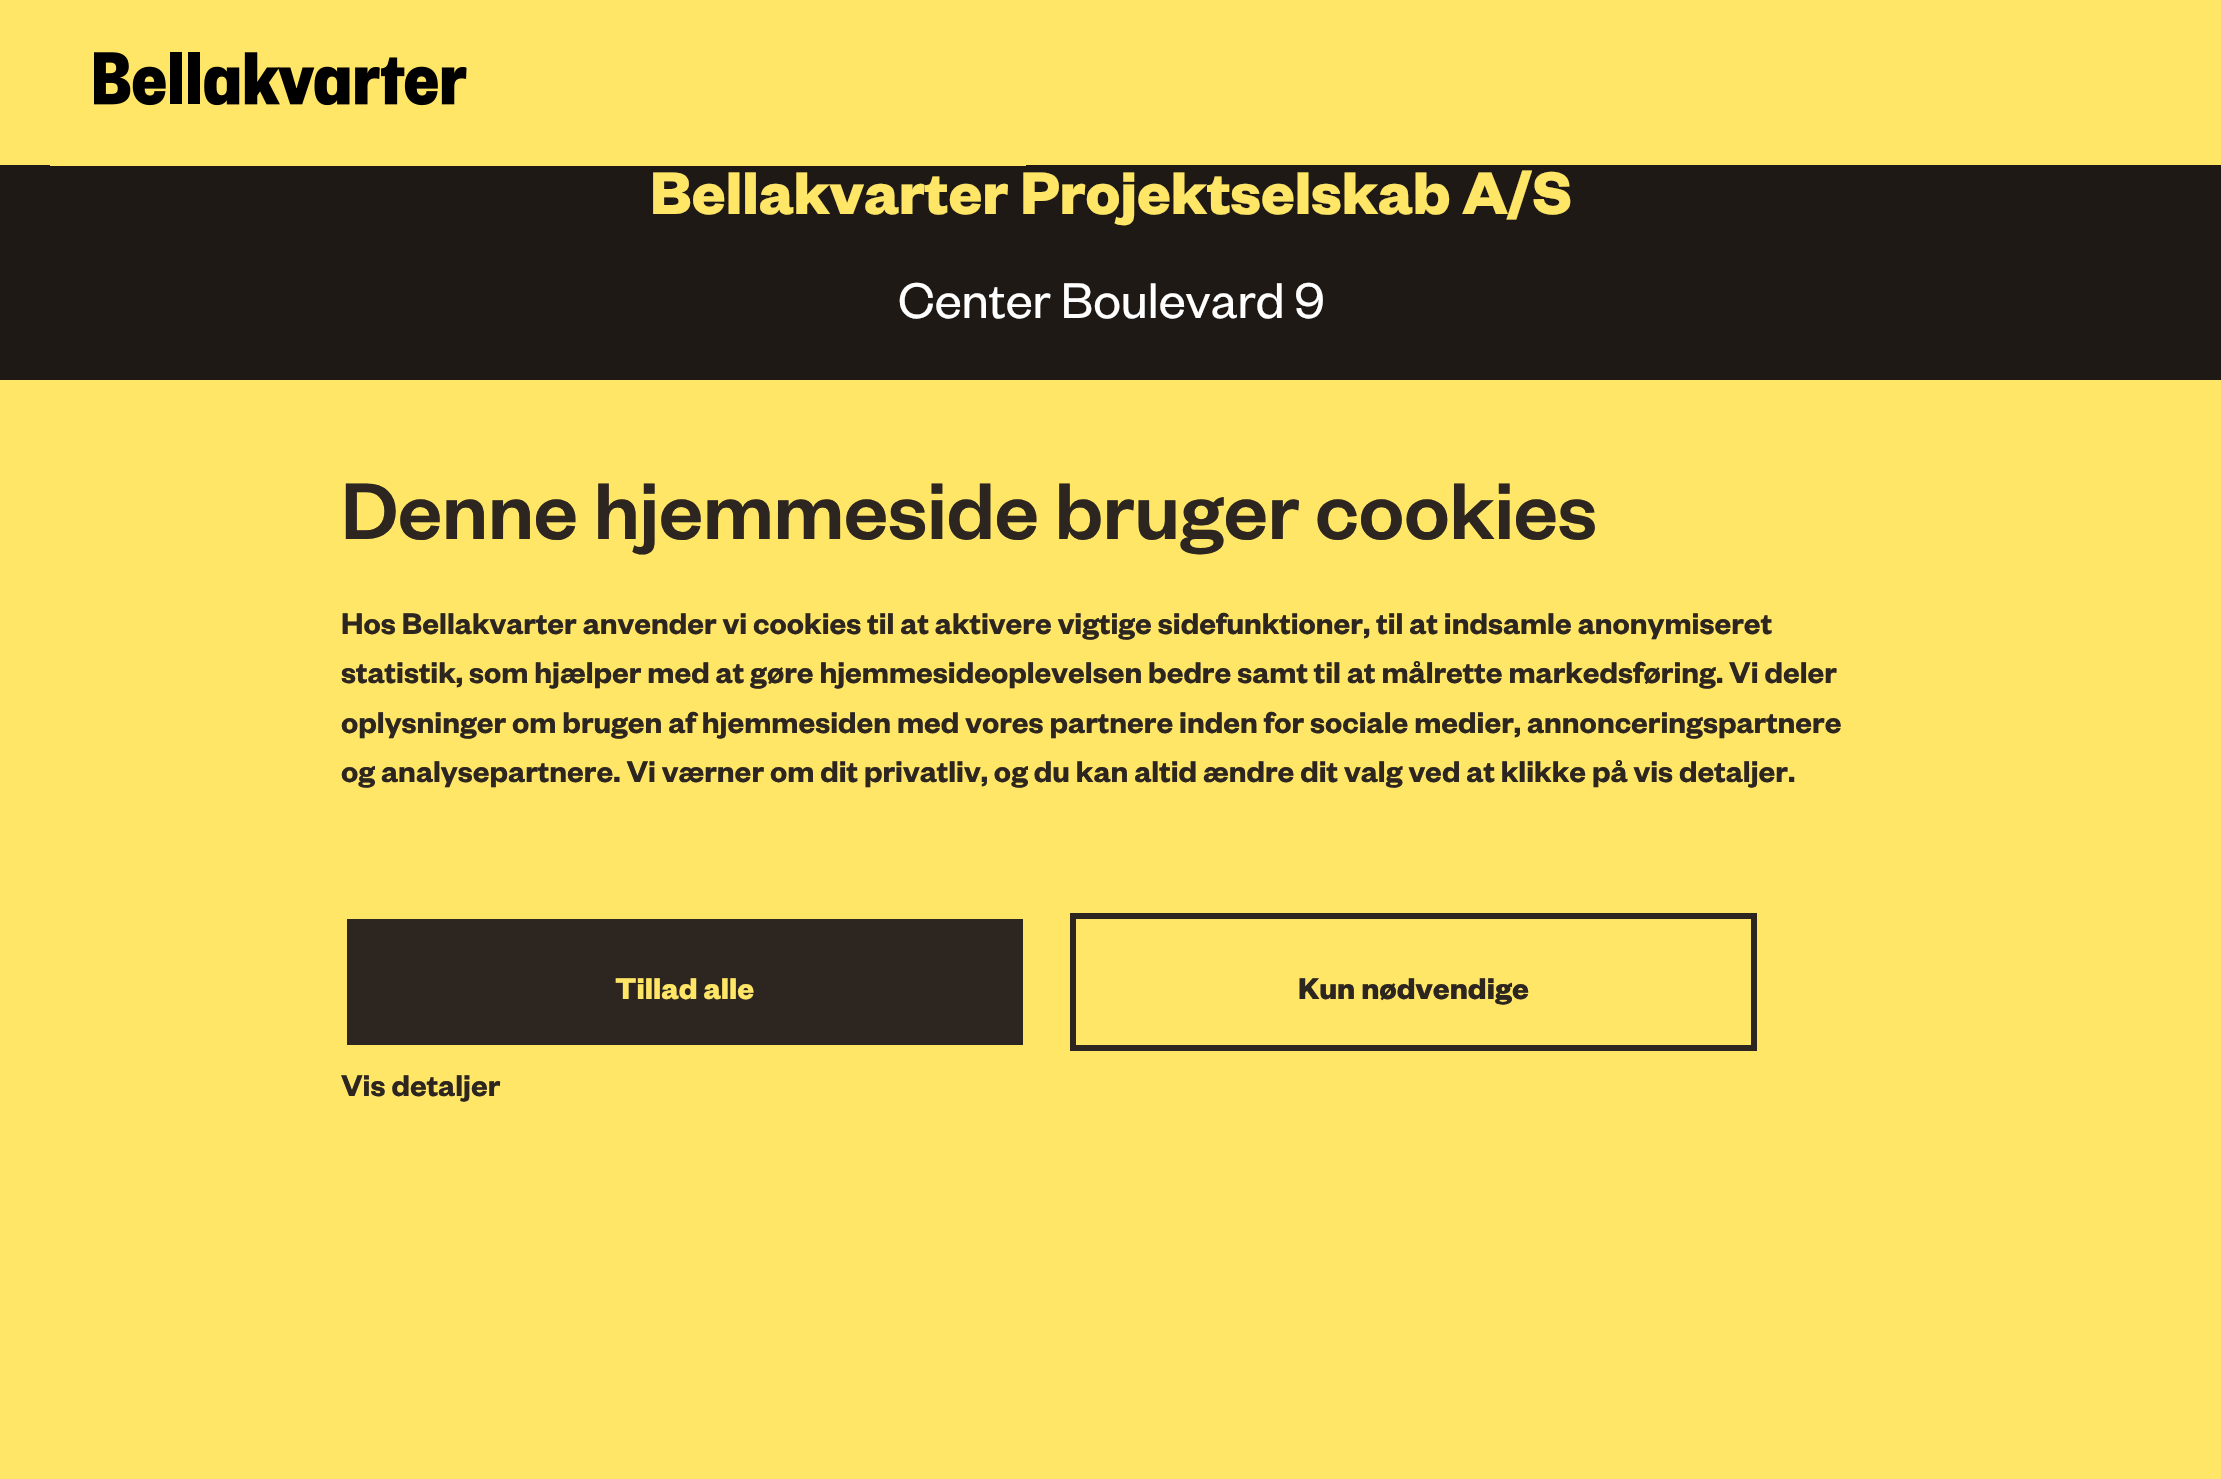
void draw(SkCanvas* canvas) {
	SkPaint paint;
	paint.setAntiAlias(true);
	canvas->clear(0xff1e1915);
	paint.setColor(0xffffe666);
	canvas->drawRect(SkRect::MakeXYWH(0, 0, 2221, 165), paint);
	canvas->drawRect(SkRect::MakeXYWH(50, 165, 976, 1), paint);
	canvas->drawImageRect(SkImages::DeferredFromEncodedData(SkData::MakeFromFileName("img1.png")), SkRect::MakeXYWH(94, 52, 373, 54), SkSamplingOptions());
	SkFont f1(fontMgr->matchFamilyStyle("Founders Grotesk", SkFontStyle::Bold()), 66);
	f1.setSubpixel(true);
	canvas->drawString("Bellakvarter Projektselskab A/S", 650, 214, f1, paint);
	SkFont f2(fontMgr->matchFamilyStyle("Founders Grotesk", SkFontStyle::Normal()), 55);
	f2.setSubpixel(true);
	paint.setColor(0xffffffff);
	canvas->drawString("Center Boulevard 9", 898, 318, f2, paint);
	paint.setColor(0xffffe666);
	canvas->drawRect(SkRect::MakeXYWH(0, 380, 2221, 1099), paint);
	SkFont f3(fontMgr->matchFamilyStyle("Founders Grotesk", SkFontStyle(500, SkFontStyle::kNormal_Width, SkFontStyle::kUpright_Slant)), 88);
	f3.setSubpixel(true);
	paint.setColor(0xff2d2620);
	canvas->drawString("Denne hjemmeside bruger cookies", 341, 539, f3, paint);
	SkFont f4(fontMgr->matchFamilyStyle("Founders Grotesk", SkFontStyle(600, SkFontStyle::kNormal_Width, SkFontStyle::kUpright_Slant)), 33);
	f4.setSubpixel(true);
	canvas->drawString("Hos Bellakvarter anvender vi cookies til at aktivere vigtige sidefunktioner, til at indsamle anonymiseret", 341, 634, f4, paint);
	canvas->drawString("statistik, som hjælper med at gøre hjemmesideoplevelsen bedre samt til at målrette markedsføring. Vi deler", 341, 683, f4, paint);
	canvas->drawString("oplysninger om brugen af hjemmesiden med vores partnere inden for sociale medier, annonceringspartnere", 341, 733, f4, paint);
	canvas->drawString("og analysepartnere. Vi værner om dit privatliv, og du kan altid ændre dit valg ved at klikke på vis detaljer.", 341, 782, f4, paint);
	canvas->drawRect(SkRect::MakeXYWH(347, 919, 676, 126), paint);
	SkFont f5(fontMgr->matchFamilyStyle("Founders Grotesk", SkFontStyle::Bold()), 33);
	f5.setSubpixel(true);
	paint.setColor(0xffffe666);
	canvas->drawString("Tillad alle", 615, 999, f5, paint);
	paint.setStroke(true);
	paint.setStrokeWidth(6);
	paint.setColor(0xff2d2620);
	canvas->drawRect(SkRect::MakeXYWH(1073, 916, 681, 132), paint);
	paint.setStroke(false);
	canvas->drawString("Kun nødvendige", 1298, 999, f5, paint);
	canvas->drawString("Vis detaljer", 341, 1096, f4, paint);
}
